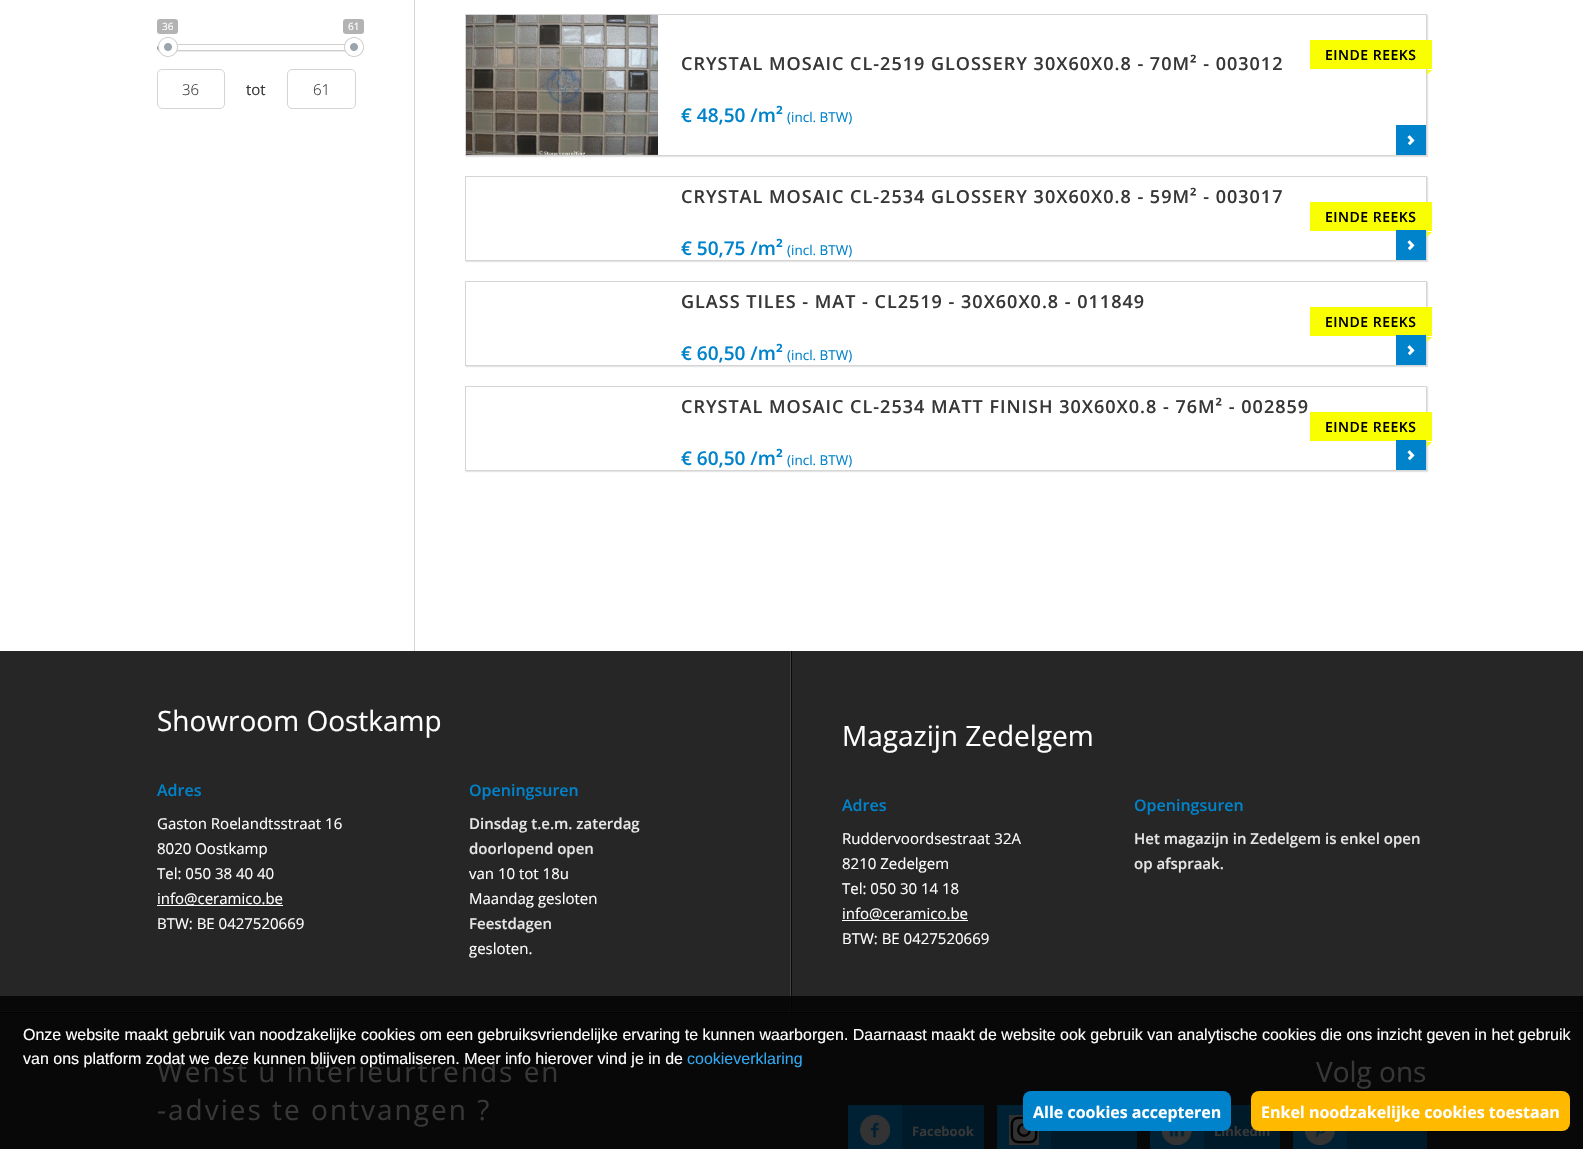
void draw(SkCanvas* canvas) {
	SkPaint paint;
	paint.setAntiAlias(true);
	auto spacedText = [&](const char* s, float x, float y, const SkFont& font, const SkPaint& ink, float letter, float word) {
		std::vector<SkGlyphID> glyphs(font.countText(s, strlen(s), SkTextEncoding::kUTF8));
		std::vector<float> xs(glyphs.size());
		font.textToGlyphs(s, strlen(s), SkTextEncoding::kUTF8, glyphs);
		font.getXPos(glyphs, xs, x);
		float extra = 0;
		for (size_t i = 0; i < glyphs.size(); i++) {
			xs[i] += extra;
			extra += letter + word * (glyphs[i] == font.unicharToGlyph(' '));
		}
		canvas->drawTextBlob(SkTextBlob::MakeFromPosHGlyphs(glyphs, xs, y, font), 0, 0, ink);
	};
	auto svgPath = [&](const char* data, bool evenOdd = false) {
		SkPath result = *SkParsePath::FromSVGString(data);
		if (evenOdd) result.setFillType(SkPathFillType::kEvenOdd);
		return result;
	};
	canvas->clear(0xffffffff);
	paint.setColor(0xffd5d5d5);
	canvas->drawRect(SkRect::MakeXYWH(414, 0, 1, 651), paint);
	paint.setColor(0xffb3b3b3);
	canvas->drawRoundRect(SkRect::MakeXYWH(157, 19, 21, 15), 3, 3, paint);
	SkFont f1(fontMgr->matchFamilyStyle("Open Sans", SkFontStyle::Normal()), 10);
	f1.setSubpixel(true);
	paint.setColor(0xffffffff);
	canvas->drawString("36", 162, 30, f1, paint);
	paint.setColor(0xffb3b3b3);
	canvas->drawRoundRect(SkRect::MakeXYWH(343, 19, 21, 15), 3, 3, paint);
	paint.setColor(0xffffffff);
	canvas->drawString("61", 348, 30, f1, paint);
	canvas->drawImageRect(SkImages::DeferredFromEncodedData(SkData::MakeFromFileName("img5.png")), SkRect::MakeXYWH(177, 51, 166, 1), SkSamplingOptions());
	canvas->drawImageRect(SkImages::DeferredFromEncodedData(SkData::MakeFromFileName("img6.png")), SkRect::MakeXYWH(343, 47, 21, 5), SkSamplingOptions());
	canvas->drawImageRect(SkImages::DeferredFromEncodedData(SkData::MakeFromFileName("img2.png")), SkRect::MakeXYWH(177, 44, 168, 8), SkSamplingOptions());
	canvas->drawImageRect(SkImages::DeferredFromEncodedData(SkData::MakeFromFileName("img4.png")), SkRect::MakeXYWH(157, 45, 2, 6), SkSamplingOptions());
	canvas->drawImageRect(SkImages::DeferredFromEncodedData(SkData::MakeFromFileName("img1.png")), SkRect::MakeXYWH(158, 37, 20, 20), SkSamplingOptions());
	canvas->drawImageRect(SkImages::DeferredFromEncodedData(SkData::MakeFromFileName("img3.png")), SkRect::MakeXYWH(344, 37, 20, 20), SkSamplingOptions());
	paint.setStroke(true);
	paint.setStrokeWidth(1);
	paint.setColor(0xffd5d5d5);
	canvas->drawRoundRect(SkRect::MakeXYWH(157.5, 69.5, 67, 39), 4.5, 4.5, paint);
	SkFont f2(fontMgr->matchFamilyStyle("Open Sans", SkFontStyle(300, SkFontStyle::kNormal_Width, SkFontStyle::kUpright_Slant)), 15);
	f2.setSubpixel(true);
	paint.setStroke(false);
	paint.setColor(0xff373737);
	canvas->drawString("36", 182, 95, f2, paint);
	SkFont f3(fontMgr->matchFamilyStyle("Open Sans", SkFontStyle::Normal()), 15);
	f3.setSubpixel(true);
	canvas->drawString("tot", 246, 95, f3, paint);
	paint.setStroke(true);
	paint.setColor(0xffd5d5d5);
	canvas->drawRoundRect(SkRect::MakeXYWH(287.5, 69.5, 68, 39), 4.5, 4.5, paint);
	paint.setStroke(false);
	paint.setColor(0xff373737);
	canvas->drawString("61", 313, 95, f2, paint);
	canvas->save();
	canvas->clipPath(svgPath("M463 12H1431V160H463ZM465 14H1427V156H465Z", true), true);
	paint.setColor(0xffe6e5e5);
	paint.setMaskFilter(SkMaskFilter::MakeBlur(kNormal_SkBlurStyle, 0.5));
	canvas->drawRect(SkRect::MakeXYWH(466, 15, 962, 142), paint);
	paint.setMaskFilter(nullptr);
	canvas->restore();
	paint.setStroke(true);
	paint.setColor(0xffd5d5d5);
	canvas->drawRect(SkRect::MakeXYWH(465.5, 14.5, 961, 141), paint);
	canvas->drawImageRect(SkImages::DeferredFromEncodedData(SkData::MakeFromFileName("img7.png")), SkRect::MakeXYWH(466, 15, 192, 140), SkSamplingOptions());
	SkFont f4(fontMgr->matchFamilyStyle("Open Sans", SkFontStyle(600, SkFontStyle::kNormal_Width, SkFontStyle::kUpright_Slant)), 18);
	f4.setSubpixel(true);
	paint.setStroke(false);
	paint.setColor(0xff373737);
	spacedText("CRYSTAL MOSAIC CL-2519 GLOSSERY 30X60X0.8 - 70M² - 003012", 681, 70, f4, paint, 1, 0);
	SkFont f5(fontMgr->matchFamilyStyle("Open Sans", SkFontStyle(600, SkFontStyle::kNormal_Width, SkFontStyle::kUpright_Slant)), 19);
	f5.setSubpixel(true);
	paint.setColor(0xff0083cb);
	canvas->drawString("€ 48,50 /m²", 681, 122, f5, paint);
	SkFont f6(fontMgr->matchFamilyStyle("Open Sans", SkFontStyle::Normal()), 13.5);
	f6.setSubpixel(true);
	canvas->drawString("(incl. BTW)", 787, 122, f6, paint);
	paint.setColor(0xfff9ff00);
	canvas->drawRect(SkRect::MakeXYWH(1310, 40, 122, 29), paint);
	SkFont f7(fontMgr->matchFamilyStyle("Open Sans", SkFontStyle(600, SkFontStyle::kNormal_Width, SkFontStyle::kUpright_Slant)), 14);
	f7.setSubpixel(true);
	paint.setColor(0xff000000);
	spacedText("EINDE REEKS", 1325, 60, f7, paint, 0.5, 0);
	paint.setColor(0xfff9ff00);
	canvas->drawPath(svgPath("M1427 70H1432L1427 75Z"), paint);
	paint.setColor(0xff0083cb);
	canvas->drawRect(SkRect::MakeXYWH(1396, 125, 30, 30), paint);
	canvas->drawImageRect(SkImages::DeferredFromEncodedData(SkData::MakeFromFileName("img8.png")), SkRect::MakeXYWH(1407, 135, 8, 11), SkSamplingOptions());
	canvas->save();
	canvas->clipPath(svgPath("M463 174H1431V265H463ZM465 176H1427V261H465Z", true), true);
	paint.setColor(0xffe6e5e5);
	paint.setMaskFilter(SkMaskFilter::MakeBlur(kNormal_SkBlurStyle, 0.5));
	canvas->drawRect(SkRect::MakeXYWH(466, 177, 962, 85), paint);
	paint.setMaskFilter(nullptr);
	canvas->restore();
	paint.setStroke(true);
	paint.setColor(0xffd5d5d5);
	canvas->drawRect(SkRect::MakeXYWH(465.5, 176.5, 961, 84), paint);
	paint.setStroke(false);
	paint.setColor(0xff373737);
	spacedText("CRYSTAL MOSAIC CL-2534 GLOSSERY 30X60X0.8 - 59M² - 003017", 681, 203, f4, paint, 1, 0);
	paint.setColor(0xff0083cb);
	canvas->drawString("€ 50,75 /m²", 681, 255, f5, paint);
	canvas->drawString("(incl. BTW)", 787, 255, f6, paint);
	paint.setColor(0xfff9ff00);
	canvas->drawRect(SkRect::MakeXYWH(1310, 202, 122, 29), paint);
	paint.setColor(0xff000000);
	spacedText("EINDE REEKS", 1325, 222, f7, paint, 0.5, 0);
	paint.setColor(0xfff9ff00);
	canvas->drawPath(svgPath("M1427 232H1432L1427 237Z"), paint);
	paint.setColor(0xff0083cb);
	canvas->drawRect(SkRect::MakeXYWH(1396, 230, 30, 30), paint);
	canvas->drawImageRect(SkImages::DeferredFromEncodedData(SkData::MakeFromFileName("img8.png")), SkRect::MakeXYWH(1407, 240, 8, 11), SkSamplingOptions());
	canvas->save();
	canvas->clipPath(svgPath("M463 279H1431V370H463ZM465 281H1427V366H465Z", true), true);
	paint.setColor(0xffe6e5e5);
	paint.setMaskFilter(SkMaskFilter::MakeBlur(kNormal_SkBlurStyle, 0.5));
	canvas->drawRect(SkRect::MakeXYWH(466, 282, 962, 85), paint);
	paint.setMaskFilter(nullptr);
	canvas->restore();
	paint.setStroke(true);
	paint.setColor(0xffd5d5d5);
	canvas->drawRect(SkRect::MakeXYWH(465.5, 281.5, 961, 84), paint);
	paint.setStroke(false);
	paint.setColor(0xff373737);
	spacedText("GLASS TILES - MAT - CL2519 - 30X60X0.8 - 011849", 681, 308, f4, paint, 1, 0);
	paint.setColor(0xff0083cb);
	canvas->drawString("€ 60,50 /m²", 681, 360, f5, paint);
	canvas->drawString("(incl. BTW)", 787, 360, f6, paint);
	paint.setColor(0xfff9ff00);
	canvas->drawRect(SkRect::MakeXYWH(1310, 307, 122, 29), paint);
	paint.setColor(0xff000000);
	spacedText("EINDE REEKS", 1325, 327, f7, paint, 0.5, 0);
	paint.setColor(0xfff9ff00);
	canvas->drawPath(svgPath("M1427 337H1432L1427 342Z"), paint);
	paint.setColor(0xff0083cb);
	canvas->drawRect(SkRect::MakeXYWH(1396, 335, 30, 30), paint);
	canvas->drawImageRect(SkImages::DeferredFromEncodedData(SkData::MakeFromFileName("img8.png")), SkRect::MakeXYWH(1407, 345, 8, 11), SkSamplingOptions());
	canvas->save();
	canvas->clipPath(svgPath("M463 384H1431V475H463ZM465 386H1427V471H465Z", true), true);
	paint.setColor(0xffe6e5e5);
	paint.setMaskFilter(SkMaskFilter::MakeBlur(kNormal_SkBlurStyle, 0.5));
	canvas->drawRect(SkRect::MakeXYWH(466, 387, 962, 85), paint);
	paint.setMaskFilter(nullptr);
	canvas->restore();
	paint.setStroke(true);
	paint.setColor(0xffd5d5d5);
	canvas->drawRect(SkRect::MakeXYWH(465.5, 386.5, 961, 84), paint);
	paint.setStroke(false);
	paint.setColor(0xff373737);
	spacedText("CRYSTAL MOSAIC CL-2534 MATT FINISH 30X60X0.8 - 76M² - 002859", 681, 413, f4, paint, 1, 0);
	paint.setColor(0xff0083cb);
	canvas->drawString("€ 60,50 /m²", 681, 465, f5, paint);
	canvas->drawString("(incl. BTW)", 787, 465, f6, paint);
	paint.setColor(0xfff9ff00);
	canvas->drawRect(SkRect::MakeXYWH(1310, 412, 122, 29), paint);
	paint.setColor(0xff000000);
	spacedText("EINDE REEKS", 1325, 432, f7, paint, 0.5, 0);
	paint.setColor(0xfff9ff00);
	canvas->drawPath(svgPath("M1427 442H1432L1427 447Z"), paint);
	paint.setColor(0xff0083cb);
	canvas->drawRect(SkRect::MakeXYWH(1396, 440, 30, 30), paint);
	canvas->drawImageRect(SkImages::DeferredFromEncodedData(SkData::MakeFromFileName("img8.png")), SkRect::MakeXYWH(1407, 450, 8, 11), SkSamplingOptions());
	paint.setColor(0xff262626);
	canvas->drawRect(SkRect::MakeXYWH(0, 651, 1583, 345), paint);
	paint.setColor(0xff080808);
	canvas->drawRect(SkRect::MakeXYWH(0, 996, 1583, 153), paint);
	SkFont f8(fontMgr->matchFamilyStyle("Open Sans", SkFontStyle::Normal()), 28);
	f8.setSubpixel(true);
	paint.setColor(0xffffffff);
	canvas->drawString("Showroom Oostkamp", 157, 731, f8, paint);
	paint.setColor(0xff424242);
	canvas->drawRect(SkRect::MakeXYWH(790, 651, 1, 345), paint);
	paint.setColor(0xff0d0d0d);
	canvas->drawRect(SkRect::MakeXYWH(790, 996, 1, 15), paint);
	paint.setColor(0xff0a0a0a);
	canvas->drawRect(SkRect::MakeXYWH(791, 651, 1, 345), paint);
	paint.setColor(0xff020202);
	canvas->drawRect(SkRect::MakeXYWH(791, 996, 1, 15), paint);
	SkFont f9(fontMgr->matchFamilyStyle("Open Sans", SkFontStyle(600, SkFontStyle::kNormal_Width, SkFontStyle::kUpright_Slant)), 16);
	f9.setSubpixel(true);
	paint.setColor(0xff0083cb);
	canvas->drawString("Adres", 157, 796, f9, paint);
	paint.setColor(0xffffffff);
	canvas->drawString("Gaston Roelandtsstraat 16", 157, 829, f3, paint);
	canvas->drawString("8020 Oostkamp", 157, 854, f3, paint);
	canvas->drawString("Tel: 050 38 40 40", 157, 879, f3, paint);
	canvas->drawRect(SkRect::MakeXYWH(157, 905, 126, 1), paint);
	canvas->drawString("info@ceramico.be", 157, 904, f3, paint);
	canvas->drawString("BTW: BE 0427520669", 157, 929, f3, paint);
	paint.setColor(0xff0083cb);
	canvas->drawString("Openingsuren", 469, 796, f9, paint);
	SkFont f10(fontMgr->matchFamilyStyle("Open Sans", SkFontStyle(600, SkFontStyle::kNormal_Width, SkFontStyle::kUpright_Slant)), 15);
	f10.setSubpixel(true);
	paint.setColor(0xffe6e5e5);
	canvas->drawString("Dinsdag t.e.m. zaterdag", 469, 829, f10, paint);
	canvas->drawString("doorlopend open", 469, 854, f10, paint);
	paint.setColor(0xffffffff);
	canvas->drawString("van 10 tot 18u", 469, 879, f3, paint);
	canvas->drawString("Maandag gesloten", 469, 904, f3, paint);
	paint.setColor(0xffe6e5e5);
	canvas->drawString("Feestdagen", 469, 929, f10, paint);
	paint.setColor(0xffffffff);
	canvas->drawString("gesloten.", 469, 954, f3, paint);
	canvas->drawString("Magazijn Zedelgem", 842, 746, f8, paint);
	paint.setColor(0xff0083cb);
	canvas->drawString("Adres", 842, 811, f9, paint);
	paint.setColor(0xffffffff);
	canvas->drawString("Ruddervoordsestraat 32A", 842, 844, f3, paint);
	canvas->drawString("8210 Zedelgem", 842, 869, f3, paint);
	canvas->drawString("Tel: 050 30 14 18", 842, 894, f3, paint);
	canvas->drawRect(SkRect::MakeXYWH(842, 920, 126, 1), paint);
	canvas->drawString("info@ceramico.be", 842, 919, f3, paint);
	canvas->drawString("BTW: BE 0427520669", 842, 944, f3, paint);
	paint.setColor(0xff0083cb);
	canvas->drawString("Openingsuren", 1134, 811, f9, paint);
	paint.setColor(0xffe6e5e5);
	canvas->drawString("Het magazijn in Zedelgem is enkel open", 1134, 844, f10, paint);
	canvas->drawString("op afspraak.", 1134, 869, f10, paint);
	paint.setColor(0xff0d0d0d);
	canvas->drawRect(SkRect::MakeXYWH(0, 1011, 1583, 1), paint);
	paint.setColor(0xff020202);
	canvas->drawRect(SkRect::MakeXYWH(0, 1012, 1582, 1), paint);
	paint.setColor(0xff373737);
	spacedText("Wenst u interieurtrends en", 157, 1082, f8, paint, 2, 0);
	spacedText("-advies te ontvangen ?", 157, 1120, f8, paint, 2, 0);
	canvas->drawString("Volg ons", 1316, 1082, f8, paint);
	paint.setColor(0xff001a29);
	canvas->drawRect(SkRect::MakeXYWH(902, 1105, 82, 44), paint);
	paint.setColor(0xff002133);
	canvas->drawRect(SkRect::MakeXYWH(848, 1105, 54, 44), paint);
	canvas->drawImageRect(SkImages::DeferredFromEncodedData(SkData::MakeFromFileName("img9.png")), SkRect::MakeXYWH(860, 1115, 30, 30), SkSamplingOptions());
	SkFont f11(fontMgr->matchFamilyStyle("Open Sans", SkFontStyle::Bold()), 13);
	f11.setSubpixel(true);
	paint.setColor(0xff373737);
	canvas->drawString("Facebook", 912, 1136, f11, paint);
	paint.setColor(0xff001a29);
	canvas->drawRect(SkRect::MakeXYWH(1051, 1131, 86, 18), paint);
	paint.setColor(0xff002133);
	canvas->drawRect(SkRect::MakeXYWH(997, 1105, 54, 44), paint);
	canvas->drawImageRect(SkImages::DeferredFromEncodedData(SkData::MakeFromFileName("img10.png")), SkRect::MakeXYWH(1009, 1115, 30, 30), SkSamplingOptions());
	paint.setColor(0xff001a29);
	canvas->drawRect(SkRect::MakeXYWH(1204, 1105, 76, 44), paint);
	paint.setColor(0xff002133);
	canvas->drawRect(SkRect::MakeXYWH(1150, 1131, 54, 18), paint);
	canvas->drawImageRect(SkImages::DeferredFromEncodedData(SkData::MakeFromFileName("img11.png")), SkRect::MakeXYWH(1162, 1131, 30, 14), SkSamplingOptions());
	paint.setColor(0xff373737);
	canvas->drawString("Linkedin", 1214, 1136, f11, paint);
	paint.setColor(0xff001a29);
	canvas->drawRect(SkRect::MakeXYWH(1347, 1131, 80, 18), paint);
	paint.setColor(0xff002133);
	canvas->drawRect(SkRect::MakeXYWH(1293, 1131, 54, 18), paint);
	canvas->drawImageRect(SkImages::DeferredFromEncodedData(SkData::MakeFromFileName("img12.png")), SkRect::MakeXYWH(1305, 1131, 30, 14), SkSamplingOptions());
	SkFont f12(fontMgr->matchFamilyStyle("Liberation Sans", SkFontStyle::Normal()), 16);
	f12.setSubpixel(true);
	paint.setColor(0xffffffff);
	canvas->drawString("Onze website maakt gebruik van noodzakelijke cookies om een gebruiksvriendelijke ervaring te kunnen waarborgen. Daarnaast maakt de website ook gebruik van analytische cookies die ons inzicht geven in het gebruik", 23, 1040, f12, paint);
	canvas->drawString("van ons platform zodat we deze kunnen blijven optimaliseren. Meer info hierover vind je in de", 23, 1064, f12, paint);
	paint.setColor(0xff31a8f0);
	canvas->drawString("cookieverklaring", 687, 1064, f12, paint);
	paint.setColor(0xff0083cb);
	canvas->drawRoundRect(SkRect::MakeXYWH(1023, 1091, 208, 40), 8, 8, paint);
	SkFont f13(fontMgr->matchFamilyStyle("Open Sans", SkFontStyle::Bold()), 16);
	f13.setSubpixel(true);
	paint.setColor(0xffffffff);
	canvas->drawString("Alle cookies accepteren", 1033, 1118, f13, paint);
	paint.setColor(0xffffba00);
	canvas->drawRoundRect(SkRect::MakeXYWH(1251, 1091, 319, 40), 8, 8, paint);
	paint.setColor(0xffffffff);
	canvas->drawString("Enkel noodzakelijke cookies toestaan", 1261, 1118, f13, paint);
}
